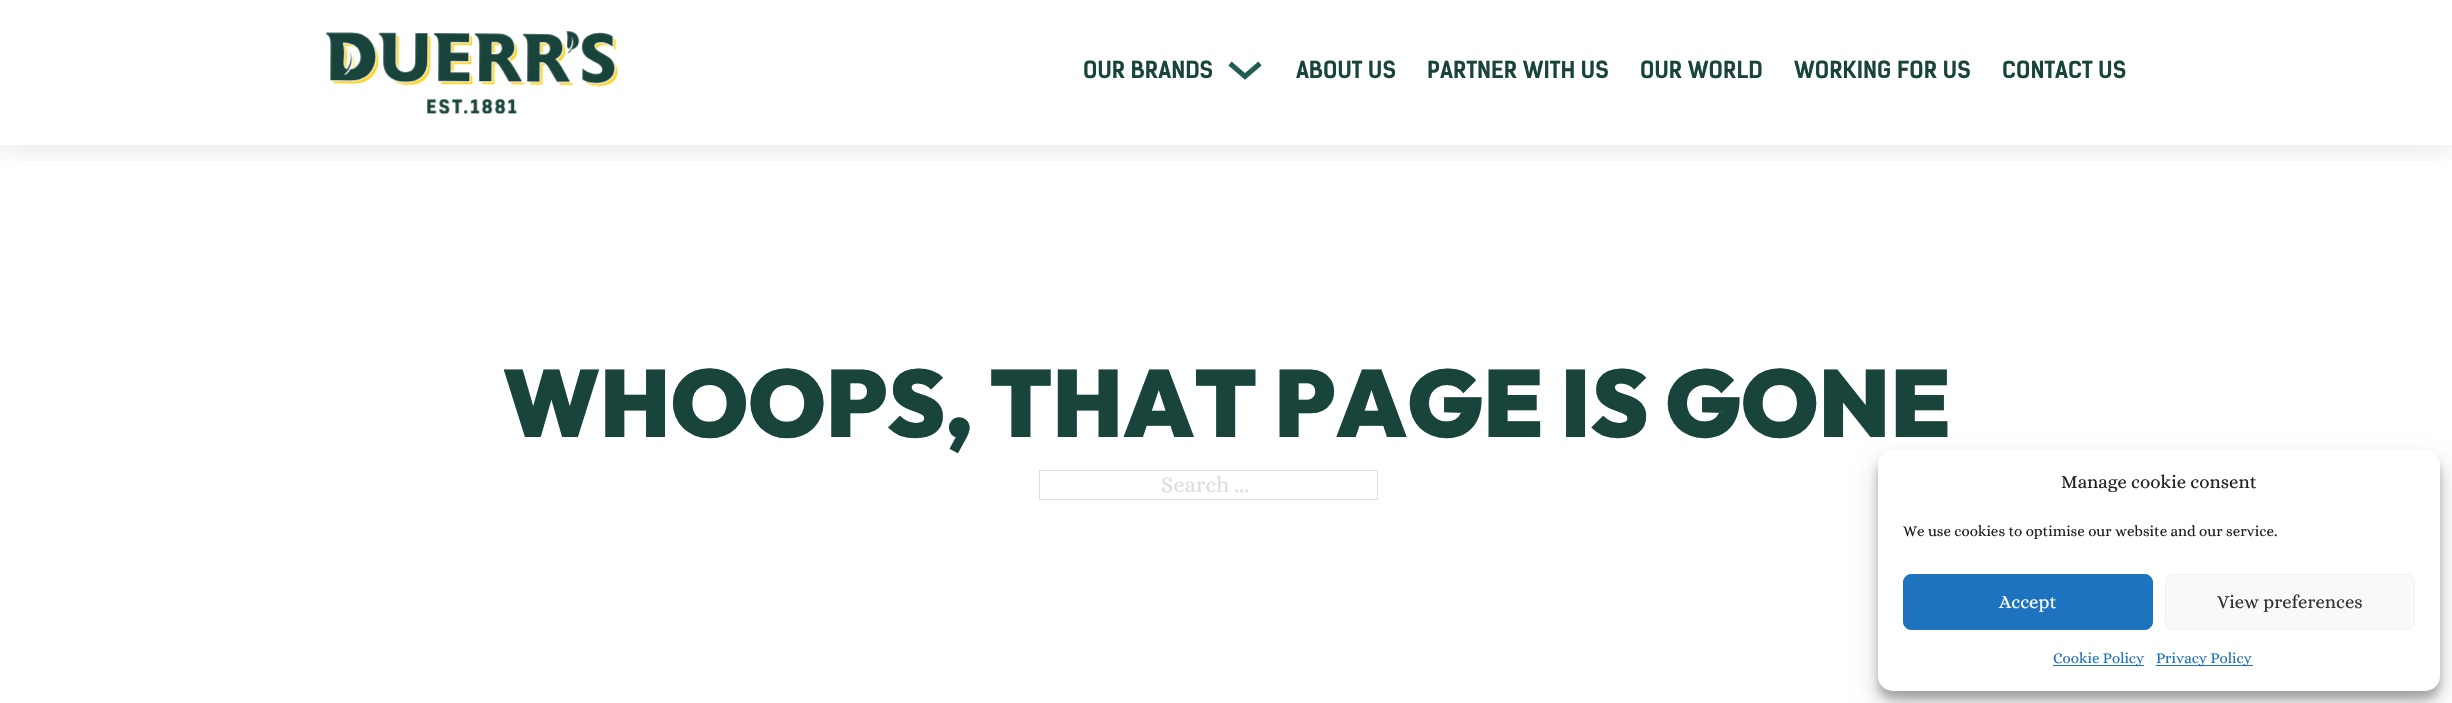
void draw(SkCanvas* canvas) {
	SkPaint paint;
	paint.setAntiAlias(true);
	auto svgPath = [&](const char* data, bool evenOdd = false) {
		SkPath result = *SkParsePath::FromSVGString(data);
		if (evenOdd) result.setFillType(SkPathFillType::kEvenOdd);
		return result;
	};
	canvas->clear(0xffffffff);
	canvas->save();
	canvas->clipRect(SkRect::MakeXYWH(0, 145, 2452, 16));
	paint.setColor(0x1a000000);
	paint.setMaskFilter(SkMaskFilter::MakeBlur(kNormal_SkBlurStyle, 15));
	canvas->drawRect(SkRect::MakeXYWH(0, 3, 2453, 145), paint);
	paint.setMaskFilter(nullptr);
	canvas->restore();
	canvas->drawImageRect(SkImages::DeferredFromEncodedData(SkData::MakeFromFileName("img1.png")), SkRect::MakeXYWH(326, 31, 292, 84), SkSamplingOptions());
	SkFont f1(fontMgr->matchFamilyStyle("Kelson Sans", SkFontStyle::Bold()), 22.5);
	f1.setSubpixel(true);
	paint.setColor(0xff18443b);
	canvas->drawString("OUR BRANDS", 1083, 78, f1, paint);
	paint.setStroke(true);
	paint.setStrokeWidth(5);
	paint.setColor(0xff215e52);
	canvas->drawPath(svgPath("M1230 63.5L1245 76.5L1260 63.5"), paint);
	paint.setStroke(false);
	paint.setColor(0xff18443b);
	canvas->drawString("ABOUT US", 1296, 78, f1, paint);
	canvas->drawString("PARTNER WITH US", 1427, 78, f1, paint);
	canvas->drawString("OUR WORLD", 1640, 78, f1, paint);
	canvas->drawString("WORKING FOR US", 1794, 78, f1, paint);
	canvas->drawString("CONTACT US", 2002, 78, f1, paint);
	SkFont f2(fontMgr->matchFamilyStyle("Outfit", SkFontStyle(900, SkFontStyle::kNormal_Width, SkFontStyle::kUpright_Slant)), 94.75);
	f2.setSubpixel(true);
	canvas->drawString("WHOOPS, THAT PAGE IS GONE", 503, 437, f2, paint);
	paint.setStroke(true);
	paint.setStrokeWidth(1);
	paint.setColor(0xffdddedf);
	canvas->drawRect(SkRect::MakeXYWH(1039.5, 470.5, 338, 29), paint);
	SkFont f3(fontMgr->matchFamilyStyle("Alice", SkFontStyle::Normal()), 22.5);
	f3.setSubpixel(true);
	paint.setStroke(false);
	canvas->drawString("Search ...", 1161, 492, f3, paint);
	paint.setColor(0x3b000000);
	paint.setMaskFilter(SkMaskFilter::MakeBlur(kNormal_SkBlurStyle, 4));
	canvas->drawRoundRect(SkRect::MakeXYWH(1878, 458, 562, 241), 15, 15, paint);
	paint.setMaskFilter(nullptr);
	paint.setColor(0x30000000);
	paint.setMaskFilter(SkMaskFilter::MakeBlur(kNormal_SkBlurStyle, 12.5));
	canvas->drawRoundRect(SkRect::MakeXYWH(1878, 463, 562, 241), 15, 15, paint);
	paint.setMaskFilter(nullptr);
	paint.setColor(0xffffffff);
	canvas->drawRoundRect(SkRect::MakeXYWH(1878, 450, 562, 241), 15, 15, paint);
	SkFont f4(fontMgr->matchFamilyStyle("Alice", SkFontStyle::Normal()), 18.75);
	f4.setSubpixel(true);
	paint.setColor(0xff222222);
	canvas->drawString("Manage cookie consent", 2061, 488, f4, paint);
	SkFont f5(fontMgr->matchFamilyStyle("Alice", SkFontStyle::Normal()), 15);
	f5.setSubpixel(true);
	canvas->drawString("We use cookies to optimise our website and our service.", 1903, 536, f5, paint);
	paint.setColor(0xff1e73be);
	canvas->drawRoundRect(SkRect::MakeXYWH(1903.5, 574.5, 249, 55), 7.5, 7.5, paint);
	paint.setStroke(true);
	canvas->drawRoundRect(SkRect::MakeXYWH(1903.5, 574.5, 249, 55), 7.5, 7.5, paint);
	paint.setStroke(false);
	paint.setColor(0xffffffff);
	canvas->drawString("Accept", 1999, 608, f4, paint);
	paint.setColor(0xfff9f9f9);
	canvas->drawRoundRect(SkRect::MakeXYWH(2165.5, 574.5, 249, 55), 7.5, 7.5, paint);
	paint.setStroke(true);
	paint.setColor(0xfff2f2f2);
	canvas->drawRoundRect(SkRect::MakeXYWH(2165.5, 574.5, 249, 55), 7.5, 7.5, paint);
	paint.setStroke(false);
	paint.setColor(0xff333333);
	canvas->drawString("View preferences", 2217, 608, f4, paint);
	paint.setColor(0xff1e73be);
	canvas->drawRect(SkRect::MakeXYWH(2053, 665, 91, 1), paint);
	canvas->drawString("Cookie Policy", 2053, 663, f5, paint);
	canvas->drawRect(SkRect::MakeXYWH(2156, 665, 97, 1), paint);
	canvas->drawString("Privacy Policy", 2156, 663, f5, paint);
}
